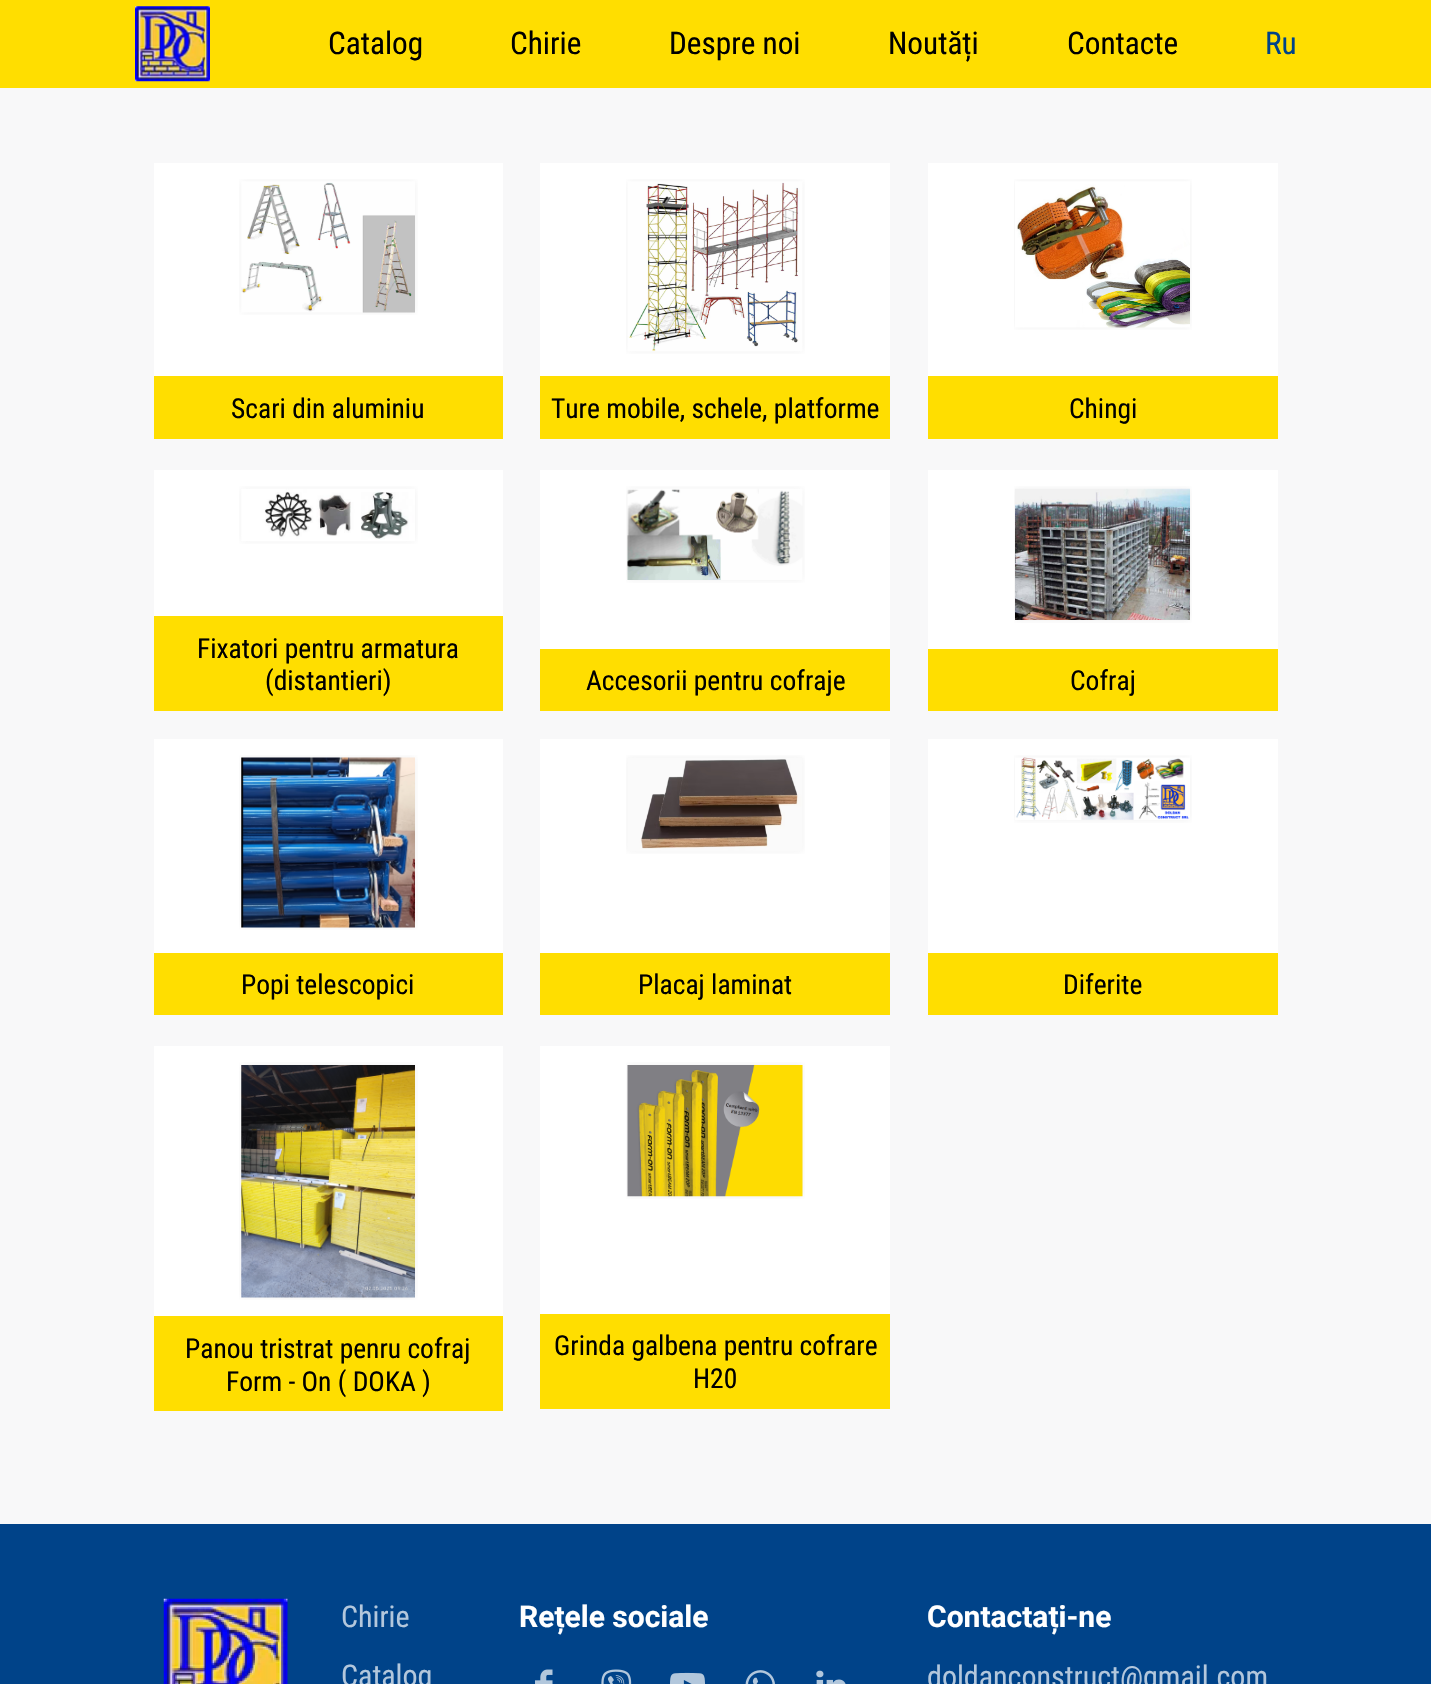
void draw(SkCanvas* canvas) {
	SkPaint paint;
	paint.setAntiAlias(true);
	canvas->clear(0xffffde00);
	canvas->drawImageRect(SkImages::DeferredFromEncodedData(SkData::MakeFromFileName("img1.png")), SkRect::MakeXYWH(135, 6, 75, 76), SkSamplingOptions());
	SkFont f1(fontMgr->matchFamilyStyle("Roboto Condensed", SkFontStyle::Normal()), 31.25);
	f1.setSubpixel(true);
	paint.setColor(0xff000000);
	canvas->drawString("Catalog", 328, 54, f1, paint);
	canvas->drawString("Chirie", 510, 54, f1, paint);
	canvas->drawString("Despre noi", 669, 54, f1, paint);
	canvas->drawString("Noutăți", 888, 54, f1, paint);
	canvas->drawString("Contacte", 1067, 54, f1, paint);
	paint.setColor(0xff004389);
	canvas->drawString("Ru", 1265, 54, f1, paint);
	paint.setColor(0xfff8f8f9);
	canvas->drawRect(SkRect::MakeXYWH(0, 88, 1431, 1436), paint);
	paint.setColor(0xffffffff);
	canvas->drawRect(SkRect::MakeXYWH(154, 163, 349, 213), paint);
	canvas->drawImageRect(SkImages::DeferredFromEncodedData(SkData::MakeFromFileName("img2.png")), SkRect::MakeXYWH(239, 179, 179, 136), SkSamplingOptions());
	paint.setColor(0xffffde00);
	canvas->drawRect(SkRect::MakeXYWH(154, 376, 349, 63), paint);
	SkFont f2(fontMgr->matchFamilyStyle("Roboto Condensed", SkFontStyle::Normal()), 27.5);
	f2.setSubpixel(true);
	paint.setColor(0xff000000);
	canvas->drawString("Scari din aluminiu", 231, 418, f2, paint);
	paint.setColor(0xffffffff);
	canvas->drawRect(SkRect::MakeXYWH(540, 163, 350, 213), paint);
	canvas->drawImageRect(SkImages::DeferredFromEncodedData(SkData::MakeFromFileName("img3.png")), SkRect::MakeXYWH(626, 179, 179, 175), SkSamplingOptions());
	paint.setColor(0xffffde00);
	canvas->drawRect(SkRect::MakeXYWH(540, 376, 350, 63), paint);
	paint.setColor(0xff000000);
	canvas->drawString("Ture mobile, schele, platforme", 551, 418, f2, paint);
	paint.setColor(0xffffffff);
	canvas->drawRect(SkRect::MakeXYWH(928, 163, 350, 213), paint);
	canvas->drawImageRect(SkImages::DeferredFromEncodedData(SkData::MakeFromFileName("img4.png")), SkRect::MakeXYWH(1014, 179, 178, 151), SkSamplingOptions());
	paint.setColor(0xffffde00);
	canvas->drawRect(SkRect::MakeXYWH(928, 376, 350, 63), paint);
	paint.setColor(0xff000000);
	canvas->drawString("Chingi", 1069, 418, f2, paint);
	paint.setColor(0xffffffff);
	canvas->drawRect(SkRect::MakeXYWH(154, 470, 349, 146), paint);
	canvas->drawImageRect(SkImages::DeferredFromEncodedData(SkData::MakeFromFileName("img5.png")), SkRect::MakeXYWH(239, 486, 179, 58), SkSamplingOptions());
	paint.setColor(0xffffde00);
	canvas->drawRect(SkRect::MakeXYWH(154, 616, 349, 95), paint);
	paint.setColor(0xff000000);
	canvas->drawString("Fixatori pentru armatura", 197, 658, f2, paint);
	canvas->drawString("(distantieri)", 265, 690, f2, paint);
	paint.setColor(0xffffffff);
	canvas->drawRect(SkRect::MakeXYWH(540, 470, 350, 179), paint);
	canvas->drawImageRect(SkImages::DeferredFromEncodedData(SkData::MakeFromFileName("img6.png")), SkRect::MakeXYWH(626, 486, 179, 97), SkSamplingOptions());
	paint.setColor(0xffffde00);
	canvas->drawRect(SkRect::MakeXYWH(540, 649, 350, 62), paint);
	paint.setColor(0xff000000);
	canvas->drawString("Accesorii pentru cofraje", 586, 690, f2, paint);
	paint.setColor(0xffffffff);
	canvas->drawRect(SkRect::MakeXYWH(928, 470, 350, 179), paint);
	canvas->drawImageRect(SkImages::DeferredFromEncodedData(SkData::MakeFromFileName("img7.png")), SkRect::MakeXYWH(1014, 486, 178, 137), SkSamplingOptions());
	paint.setColor(0xffffde00);
	canvas->drawRect(SkRect::MakeXYWH(928, 649, 350, 62), paint);
	paint.setColor(0xff000000);
	canvas->drawString("Cofraj", 1070, 690, f2, paint);
	paint.setColor(0xffffffff);
	canvas->drawRect(SkRect::MakeXYWH(154, 739, 349, 214), paint);
	canvas->drawImageRect(SkImages::DeferredFromEncodedData(SkData::MakeFromFileName("img8.png")), SkRect::MakeXYWH(239, 755, 179, 175), SkSamplingOptions());
	paint.setColor(0xffffde00);
	canvas->drawRect(SkRect::MakeXYWH(154, 953, 349, 62), paint);
	paint.setColor(0xff000000);
	canvas->drawString("Popi telescopici", 241, 994, f2, paint);
	paint.setColor(0xffffffff);
	canvas->drawRect(SkRect::MakeXYWH(540, 739, 350, 214), paint);
	canvas->drawImageRect(SkImages::DeferredFromEncodedData(SkData::MakeFromFileName("img9.png")), SkRect::MakeXYWH(626, 755, 179, 99), SkSamplingOptions());
	paint.setColor(0xffffde00);
	canvas->drawRect(SkRect::MakeXYWH(540, 953, 350, 62), paint);
	paint.setColor(0xff000000);
	canvas->drawString("Placaj laminat", 638, 994, f2, paint);
	paint.setColor(0xffffffff);
	canvas->drawRect(SkRect::MakeXYWH(928, 739, 350, 214), paint);
	canvas->drawImageRect(SkImages::DeferredFromEncodedData(SkData::MakeFromFileName("img10.png")), SkRect::MakeXYWH(1014, 755, 178, 68), SkSamplingOptions());
	paint.setColor(0xffffde00);
	canvas->drawRect(SkRect::MakeXYWH(928, 953, 350, 62), paint);
	paint.setColor(0xff000000);
	canvas->drawString("Diferite", 1063, 994, f2, paint);
	paint.setColor(0xffffffff);
	canvas->drawRect(SkRect::MakeXYWH(154, 1046, 349, 270), paint);
	canvas->drawImageRect(SkImages::DeferredFromEncodedData(SkData::MakeFromFileName("img11.png")), SkRect::MakeXYWH(239, 1062, 179, 238), SkSamplingOptions());
	paint.setColor(0xffffde00);
	canvas->drawRect(SkRect::MakeXYWH(154, 1316, 349, 95), paint);
	paint.setColor(0xff000000);
	canvas->drawString("Panou tristrat penru cofraj", 185, 1358, f2, paint);
	canvas->drawString("Form - On ( DOKA )", 226, 1391, f2, paint);
	paint.setColor(0xffffffff);
	canvas->drawRect(SkRect::MakeXYWH(540, 1046, 350, 268), paint);
	canvas->drawImageRect(SkImages::DeferredFromEncodedData(SkData::MakeFromFileName("img12.png")), SkRect::MakeXYWH(626, 1062, 179, 137), SkSamplingOptions());
	paint.setColor(0xffffde00);
	canvas->drawRect(SkRect::MakeXYWH(540, 1314, 350, 95), paint);
	paint.setColor(0xff000000);
	canvas->drawString("Grinda galbena pentru cofrare", 554, 1355, f2, paint);
	canvas->drawString("H20", 693, 1388, f2, paint);
	paint.setColor(0xff004389);
	canvas->drawRect(SkRect::MakeXYWH(0, 1524, 1431, 160), paint);
	canvas->drawImageRect(SkImages::DeferredFromEncodedData(SkData::MakeFromFileName("img13.png")), SkRect::MakeXYWH(163, 1598, 125, 86), SkSamplingOptions());
	SkFont f3(fontMgr->matchFamilyStyle("Roboto Condensed", SkFontStyle::Normal()), 30);
	f3.setSubpixel(true);
	paint.setColor(0xffb3c7dc);
	canvas->drawString("Chirie", 341, 1627, f3, paint);
	canvas->drawString("Catalog", 341, 1686, f3, paint);
	SkFont f4(fontMgr->matchFamilyStyle("Roboto", SkFontStyle::Bold()), 30);
	f4.setSubpixel(true);
	paint.setColor(0xffffffff);
	canvas->drawString("Rețele sociale", 519, 1627, f4, paint);
	canvas->drawImageRect(SkImages::DeferredFromEncodedData(SkData::MakeFromFileName("img14.png")), SkRect::MakeXYWH(535, 1669, 18, 15), SkSamplingOptions());
	canvas->drawImageRect(SkImages::DeferredFromEncodedData(SkData::MakeFromFileName("img15.png")), SkRect::MakeXYWH(601, 1669, 31, 15), SkSamplingOptions());
	canvas->drawImageRect(SkImages::DeferredFromEncodedData(SkData::MakeFromFileName("img16.png")), SkRect::MakeXYWH(670, 1672, 35, 12), SkSamplingOptions());
	canvas->drawImageRect(SkImages::DeferredFromEncodedData(SkData::MakeFromFileName("img17.png")), SkRect::MakeXYWH(745, 1670, 30, 14), SkSamplingOptions());
	canvas->drawImageRect(SkImages::DeferredFromEncodedData(SkData::MakeFromFileName("img18.png")), SkRect::MakeXYWH(816, 1670, 30, 14), SkSamplingOptions());
	canvas->drawString("Contactați-ne", 927, 1627, f4, paint);
	paint.setColor(0xffb3c7dc);
	canvas->drawString("doldanconstruct@gmail.com", 927, 1687, f3, paint);
}
